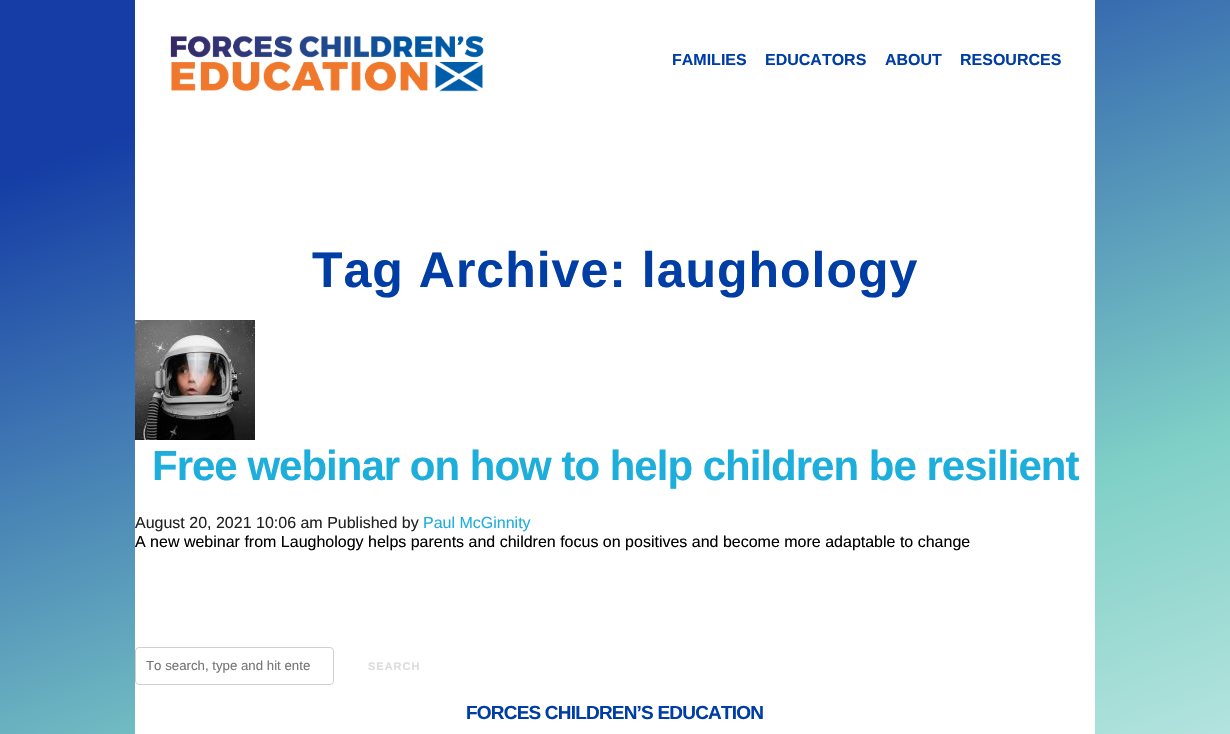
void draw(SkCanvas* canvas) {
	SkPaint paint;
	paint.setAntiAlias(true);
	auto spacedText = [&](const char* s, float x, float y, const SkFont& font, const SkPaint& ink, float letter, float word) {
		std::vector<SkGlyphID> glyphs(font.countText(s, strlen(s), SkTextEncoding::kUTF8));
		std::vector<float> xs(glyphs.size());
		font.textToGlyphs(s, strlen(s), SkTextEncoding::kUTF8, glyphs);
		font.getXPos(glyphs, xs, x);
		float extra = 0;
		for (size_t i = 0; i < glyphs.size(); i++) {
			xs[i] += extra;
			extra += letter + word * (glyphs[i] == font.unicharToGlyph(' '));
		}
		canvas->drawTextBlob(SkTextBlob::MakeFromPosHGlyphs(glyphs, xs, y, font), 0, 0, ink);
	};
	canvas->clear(0xffffffff);
	{
		const SkColor colors[] = {0xff153da5, 0xff80d0c7, 0xffffffff};
		const float stops[] = {0.11, 0.54, 1};
		const SkPoint ends[] = {{354, -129}, {876, 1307}};
		paint.setShader(SkGradientShader::MakeLinear(ends, colors, stops, 3, SkTileMode::kClamp));
		paint.setAlpha(255);
	}
	canvas->drawRect(SkRect::MakeXYWH(0, 0, 1230, 734), paint);
	paint.setShader(nullptr);
	paint.setColor(0xffffffff);
	canvas->drawRect(SkRect::MakeXYWH(135, 0, 960, 734), paint);
	canvas->drawImageRect(SkImages::DeferredFromEncodedData(SkData::MakeFromFileName("img1.png")), SkRect::MakeXYWH(170, 35, 314, 57), SkSamplingOptions());
	SkFont f1(fontMgr->matchFamilyStyle("Liberation Sans", SkFontStyle::Bold()), 16);
	f1.setSubpixel(true);
	paint.setColor(0xff003da5);
	canvas->drawString("FAMILIES", 672, 65, f1, paint);
	canvas->drawString("EDUCATORS", 765, 65, f1, paint);
	canvas->drawString("ABOUT", 885, 65, f1, paint);
	canvas->drawString("RESOURCES", 960, 65, f1, paint);
	SkFont f2(fontMgr->matchFamilyStyle("Liberation Sans", SkFontStyle::Bold()), 50);
	f2.setSubpixel(true);
	spacedText("Tag Archive: laughology", 312, 287, f2, paint, 1, 0);
	canvas->drawImageRect(SkImages::DeferredFromEncodedData(SkData::MakeFromFileName("img2.png")), SkRect::MakeXYWH(135, 320, 120, 120), SkSamplingOptions());
	SkFont f3(fontMgr->matchFamilyStyle("Liberation Sans", SkFontStyle::Bold()), 42);
	f3.setSubpixel(true);
	paint.setColor(0xff1eaedb);
	spacedText("Free webinar on how to help children be resilient", 152, 480, f3, paint, -1, 0);
	SkFont f4(fontMgr->matchFamilyStyle("Liberation Sans", SkFontStyle::Normal()), 16);
	f4.setSubpixel(true);
	paint.setColor(0xff222222);
	canvas->drawString("August 20, 2021 10:06 am Published by", 135, 528, f4, paint);
	paint.setColor(0xff1eaedb);
	canvas->drawString("Paul McGinnity", 423, 528, f4, paint);
	paint.setColor(0xff000000);
	canvas->drawString("A new webinar from Laughology helps parents and children focus on positives and become more adaptable to change", 135, 547, f4, paint);
	paint.setStroke(true);
	paint.setStrokeWidth(1);
	paint.setColor(0xffd1d1d1);
	canvas->drawRoundRect(SkRect::MakeXYWH(135.5, 647.5, 198, 37), 3.5, 3.5, paint);
	canvas->save();
	canvas->clipRect(SkRect::MakeXYWH(146, 658, 164, 15));
	SkFont f5(fontMgr->matchFamilyStyle("Liberation Sans", SkFontStyle::Normal()), 13.25);
	f5.setSubpixel(true);
	paint.setStroke(false);
	paint.setColor(0xff757575);
	canvas->drawString("To search, type and hit ente", 146, 670, f5, paint);
	canvas->restore();
	SkFont f6(fontMgr->matchFamilyStyle("Liberation Sans", SkFontStyle::Bold()), 11);
	f6.setSubpixel(true);
	paint.setColor(0xffdcdcdc);
	spacedText("SEARCH", 368, 670, f6, paint, 1, 0);
	SkFont f7(fontMgr->matchFamilyStyle("Liberation Sans", SkFontStyle::Bold()), 19);
	f7.setSubpixel(true);
	paint.setColor(0xff003da5);
	spacedText("FORCES CHILDREN’S EDUCATION", 466, 719, f7, paint, -0.8, 0);
}
